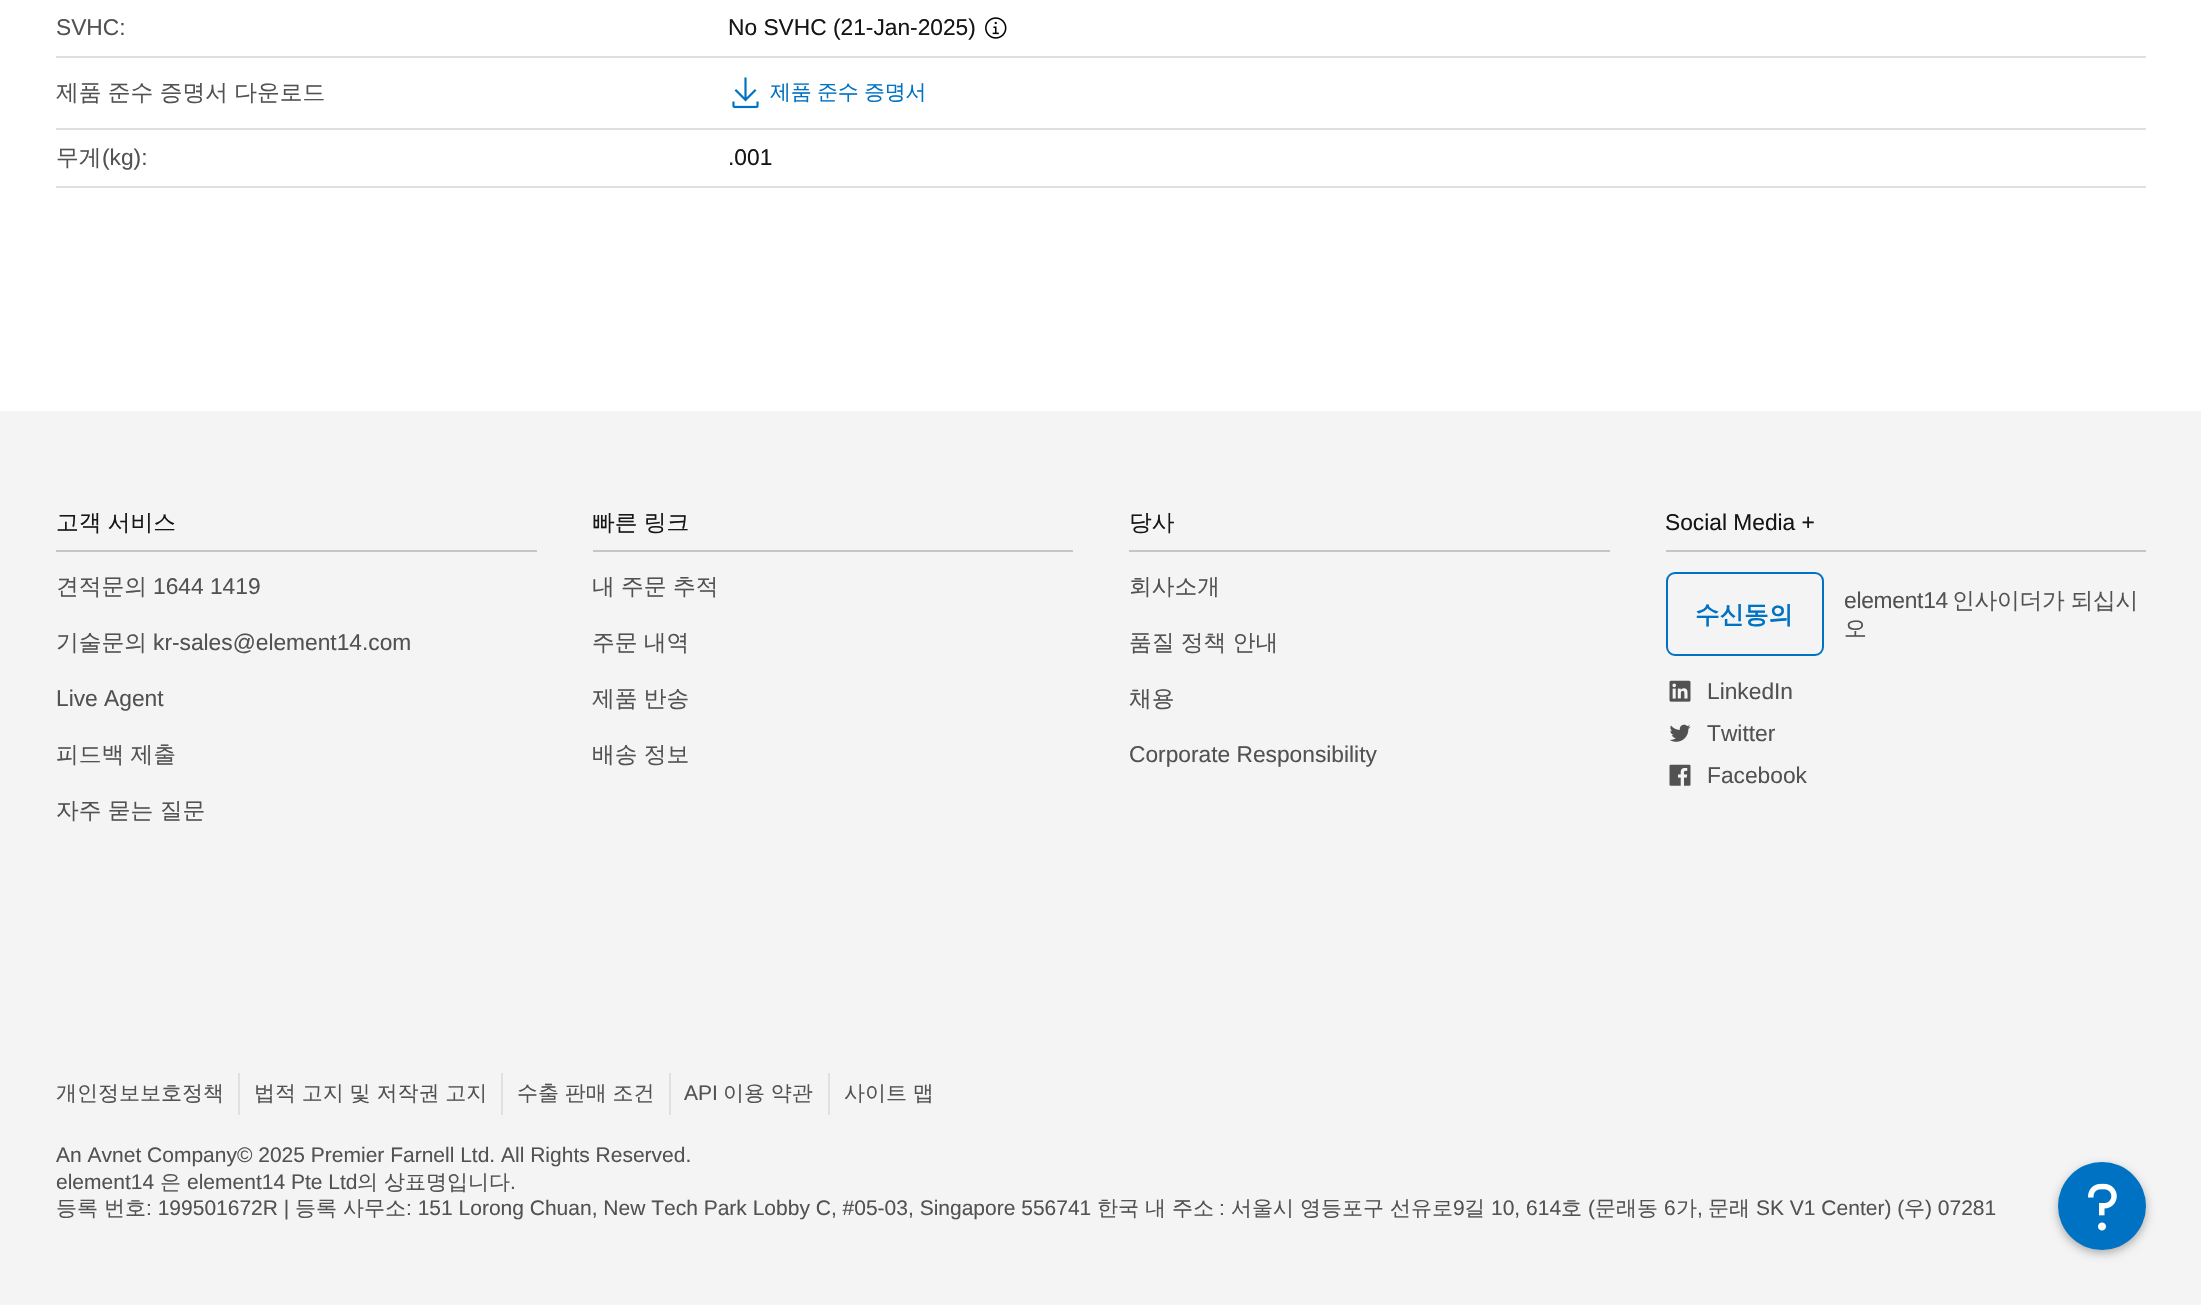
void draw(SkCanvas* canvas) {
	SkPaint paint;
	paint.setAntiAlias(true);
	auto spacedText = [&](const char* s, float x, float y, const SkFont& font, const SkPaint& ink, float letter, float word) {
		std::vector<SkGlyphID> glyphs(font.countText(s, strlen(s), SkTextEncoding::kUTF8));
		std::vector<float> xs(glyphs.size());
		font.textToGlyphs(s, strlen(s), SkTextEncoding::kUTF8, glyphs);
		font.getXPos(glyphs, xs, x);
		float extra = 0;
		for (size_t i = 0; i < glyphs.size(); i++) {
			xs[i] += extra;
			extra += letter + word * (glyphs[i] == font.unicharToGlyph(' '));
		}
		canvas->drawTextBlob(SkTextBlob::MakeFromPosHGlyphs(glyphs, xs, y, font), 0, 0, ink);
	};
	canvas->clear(0xffffffff);
	paint.setColor(0xffe0e0e0);
	canvas->drawRect(SkRect::MakeXYWH(56, 56, 2090, 2), paint);
	SkFont f1(fontMgr->matchFamilyStyle("Liberation Sans", SkFontStyle::Normal()), 22.75);
	f1.setSubpixel(true);
	paint.setColor(0xff525252);
	canvas->drawString("SVHC:", 56, 35, f1, paint);
	paint.setColor(0xff161616);
	canvas->drawString("No SVHC (21-Jan-2025)", 728, 35, f1, paint);
	canvas->drawImageRect(SkImages::DeferredFromEncodedData(SkData::MakeFromFileName("img1.png")), SkRect::MakeXYWH(985, 17, 22, 22), SkSamplingOptions());
	paint.setColor(0xffe0e0e0);
	canvas->drawRect(SkRect::MakeXYWH(56, 128, 2090, 2), paint);
	SkFont f2(fontMgr->matchFamilyStyle("WenQuanYi Zen Hei", SkFontStyle(500, SkFontStyle::kNormal_Width, SkFontStyle::kUpright_Slant)), 22.75);
	f2.setSubpixel(true);
	paint.setColor(0xff525252);
	spacedText("제품 준수 증명서 다운로드", 56, 100, f2, paint, 0, -0.5);
	canvas->drawImageRect(SkImages::DeferredFromEncodedData(SkData::MakeFromFileName("img2.png")), SkRect::MakeXYWH(732, 77, 27, 32), SkSamplingOptions());
	SkFont f3(fontMgr->matchFamilyStyle("WenQuanYi Zen Hei", SkFontStyle(500, SkFontStyle::kNormal_Width, SkFontStyle::kUpright_Slant)), 21);
	f3.setSubpixel(true);
	paint.setColor(0xff0072c3);
	spacedText("제품 준수 증명서", 770, 99, f3, paint, -0.25, -0.5);
	paint.setColor(0xffe0e0e0);
	canvas->drawRect(SkRect::MakeXYWH(56, 186, 2090, 2), paint);
	paint.setColor(0xff525252);
	canvas->drawString("무게", 56, 165, f2, paint);
	canvas->drawString("(kg):", 102, 165, f1, paint);
	paint.setColor(0xff161616);
	canvas->drawString(".001", 728, 165, f1, paint);
	paint.setColor(0xfff4f4f4);
	canvas->drawRect(SkRect::MakeXYWH(0, 411, 2201, 894), paint);
	paint.setColor(0xffc6c6c6);
	canvas->drawRect(SkRect::MakeXYWH(56, 550, 481, 2), paint);
	paint.setColor(0xff161616);
	spacedText("고객 서비스", 56, 530, f2, paint, 0, -0.5);
	paint.setColor(0xff525252);
	canvas->drawString("견적문의", 56, 594, f2, paint);
	canvas->drawString("1644 1419", 153, 594, f1, paint);
	canvas->drawString("기술문의", 56, 650, f2, paint);
	canvas->drawString("kr-sales@element14.com", 153, 650, f1, paint);
	canvas->drawString("Live Agent", 56, 706, f1, paint);
	spacedText("피드백 제출", 56, 762, f2, paint, 0, -0.5);
	spacedText("자주 묻는 질문", 56, 818, f2, paint, 0, -0.5);
	paint.setColor(0xffc6c6c6);
	canvas->drawRect(SkRect::MakeXYWH(593, 550, 480, 2), paint);
	paint.setColor(0xff161616);
	spacedText("빠른 링크", 592, 530, f2, paint, 0, -0.5);
	paint.setColor(0xff525252);
	spacedText("내 주문 추적", 592, 594, f2, paint, 0, -0.5);
	spacedText("주문 내역", 592, 650, f2, paint, 0, -0.5);
	spacedText("제품 반송", 592, 706, f2, paint, 0, -0.5);
	spacedText("배송 정보", 592, 762, f2, paint, 0, -0.5);
	paint.setColor(0xffc6c6c6);
	canvas->drawRect(SkRect::MakeXYWH(1129, 550, 481, 2), paint);
	paint.setColor(0xff161616);
	canvas->drawString("당사", 1129, 530, f2, paint);
	paint.setColor(0xff525252);
	canvas->drawString("회사소개", 1129, 594, f2, paint);
	spacedText("품질 정책 안내", 1129, 650, f2, paint, 0, -0.5);
	canvas->drawString("채용", 1129, 706, f2, paint);
	canvas->drawString("Corporate Responsibility", 1129, 762, f1, paint);
	paint.setColor(0xffc6c6c6);
	canvas->drawRect(SkRect::MakeXYWH(1666, 550, 480, 2), paint);
	paint.setColor(0xff161616);
	canvas->drawString("Social Media +", 1665, 530, f1, paint);
	paint.setStroke(true);
	paint.setStrokeWidth(2);
	paint.setColor(0xff0072c3);
	canvas->drawRoundRect(SkRect::MakeXYWH(1667, 573, 156, 82), 8, 8, paint);
	SkFont f4(fontMgr->matchFamilyStyle("WenQuanYi Zen Hei", SkFontStyle::Bold()), 24.5);
	f4.setSubpixel(true);
	paint.setStroke(false);
	canvas->drawString("수신동의", 1695, 623, f4, paint);
	paint.setColor(0xff525252);
	spacedText("element14", 1844, 608, f1, paint, -0.25, 0);
	spacedText("인사이더가 되십시", 1952, 608, f2, paint, -0.25, -0.5);
	spacedText("오", 1844, 636, f2, paint, -0.25, 0);
	canvas->drawImageRect(SkImages::DeferredFromEncodedData(SkData::MakeFromFileName("img3.png")), SkRect::MakeXYWH(1669, 680, 22, 22), SkSamplingOptions());
	canvas->drawString("LinkedIn", 1707, 699, f1, paint);
	canvas->drawImageRect(SkImages::DeferredFromEncodedData(SkData::MakeFromFileName("img4.png")), SkRect::MakeXYWH(1669, 724, 22, 18), SkSamplingOptions());
	canvas->drawString("Twitter", 1707, 741, f1, paint);
	canvas->drawImageRect(SkImages::DeferredFromEncodedData(SkData::MakeFromFileName("img5.png")), SkRect::MakeXYWH(1669, 764, 22, 22), SkSamplingOptions());
	canvas->drawString("Facebook", 1707, 783, f1, paint);
	paint.setColor(0xffe0e0e0);
	canvas->drawRect(SkRect::MakeXYWH(238, 1073, 2, 42), paint);
	paint.setColor(0xff525252);
	canvas->drawString("개인정보보호정책", 56, 1100, f3, paint);
	paint.setColor(0xffe0e0e0);
	canvas->drawRect(SkRect::MakeXYWH(501, 1073, 2, 42), paint);
	paint.setColor(0xff525252);
	spacedText("법적 고지 및 저작권 고지", 254, 1100, f3, paint, 0, -0.5);
	paint.setColor(0xffe0e0e0);
	canvas->drawRect(SkRect::MakeXYWH(669, 1073, 2, 42), paint);
	paint.setColor(0xff525252);
	spacedText("수출 판매 조건", 517, 1100, f3, paint, 0, -0.5);
	paint.setColor(0xffe0e0e0);
	canvas->drawRect(SkRect::MakeXYWH(828, 1073, 2, 42), paint);
	SkFont f5(fontMgr->matchFamilyStyle("Liberation Sans", SkFontStyle::Normal()), 21);
	f5.setSubpixel(true);
	paint.setColor(0xff525252);
	canvas->drawString("API", 684, 1100, f5, paint);
	spacedText("이용 약관", 723, 1100, f3, paint, 0, -0.5);
	spacedText("사이트 맵", 844, 1100, f3, paint, 0, -0.5);
	canvas->drawString("An Avnet Company© 2025 Premier Farnell Ltd. All Rights Reserved.", 56, 1162, f5, paint);
	canvas->drawString("element14", 56, 1189, f5, paint);
	canvas->drawString("은", 160, 1189, f3, paint);
	canvas->drawString("element14 Pte Ltd", 187, 1189, f5, paint);
	canvas->drawString("의", 357, 1189, f3, paint);
	canvas->drawString("상표명입니다", 384, 1189, f3, paint);
	canvas->drawString(".", 510, 1189, f5, paint);
	canvas->drawString("등록", 56, 1215, f3, paint);
	canvas->drawString("번호", 104, 1215, f3, paint);
	canvas->drawString(": 199501672R |", 146, 1215, f5, paint);
	canvas->drawString("등록", 295, 1215, f3, paint);
	canvas->drawString("사무소", 343, 1215, f3, paint);
	canvas->drawString(": 151 Lorong Chuan, New Tech Park Lobby C, #05-03, Singapore 556741", 406, 1215, f5, paint);
	canvas->drawString("한국", 1097, 1215, f3, paint);
	canvas->drawString("내", 1145, 1215, f3, paint);
	canvas->drawString("주소", 1172, 1215, f3, paint);
	canvas->drawString(":", 1219, 1215, f5, paint);
	canvas->drawString("서울시", 1231, 1215, f3, paint);
	canvas->drawString("영등포구", 1300, 1215, f3, paint);
	canvas->drawString("선유로", 1390, 1215, f3, paint);
	canvas->drawString("9", 1453, 1215, f5, paint);
	canvas->drawString("길", 1464, 1215, f3, paint);
	canvas->drawString("10, 614", 1491, 1215, f5, paint);
	canvas->drawString("호", 1561, 1215, f3, paint);
	canvas->drawString("(", 1588, 1215, f5, paint);
	canvas->drawString("문래동", 1595, 1215, f3, paint);
	canvas->drawString("6", 1664, 1215, f5, paint);
	canvas->drawString("가", 1676, 1215, f3, paint);
	canvas->drawString(",", 1697, 1215, f5, paint);
	canvas->drawString("문래", 1708, 1215, f3, paint);
	canvas->drawString("SK V1 Center) (", 1756, 1215, f5, paint);
	canvas->drawString("우", 1904, 1215, f3, paint);
	canvas->drawString(") 07281", 1925, 1215, f5, paint);
	paint.setColor(0x4d000000);
	paint.setMaskFilter(SkMaskFilter::MakeBlur(kNormal_SkBlurStyle, 5));
	canvas->drawRoundRect(SkRect::MakeXYWH(2058, 1166, 88, 87), 43.5, 43.5, paint);
	paint.setMaskFilter(nullptr);
	paint.setColor(0xff0072c3);
	canvas->drawCircle(2102, 1206, 44, paint);
	canvas->drawImageRect(SkImages::DeferredFromEncodedData(SkData::MakeFromFileName("img6.png")), SkRect::MakeXYWH(2088, 1183, 29, 48), SkSamplingOptions());
}
